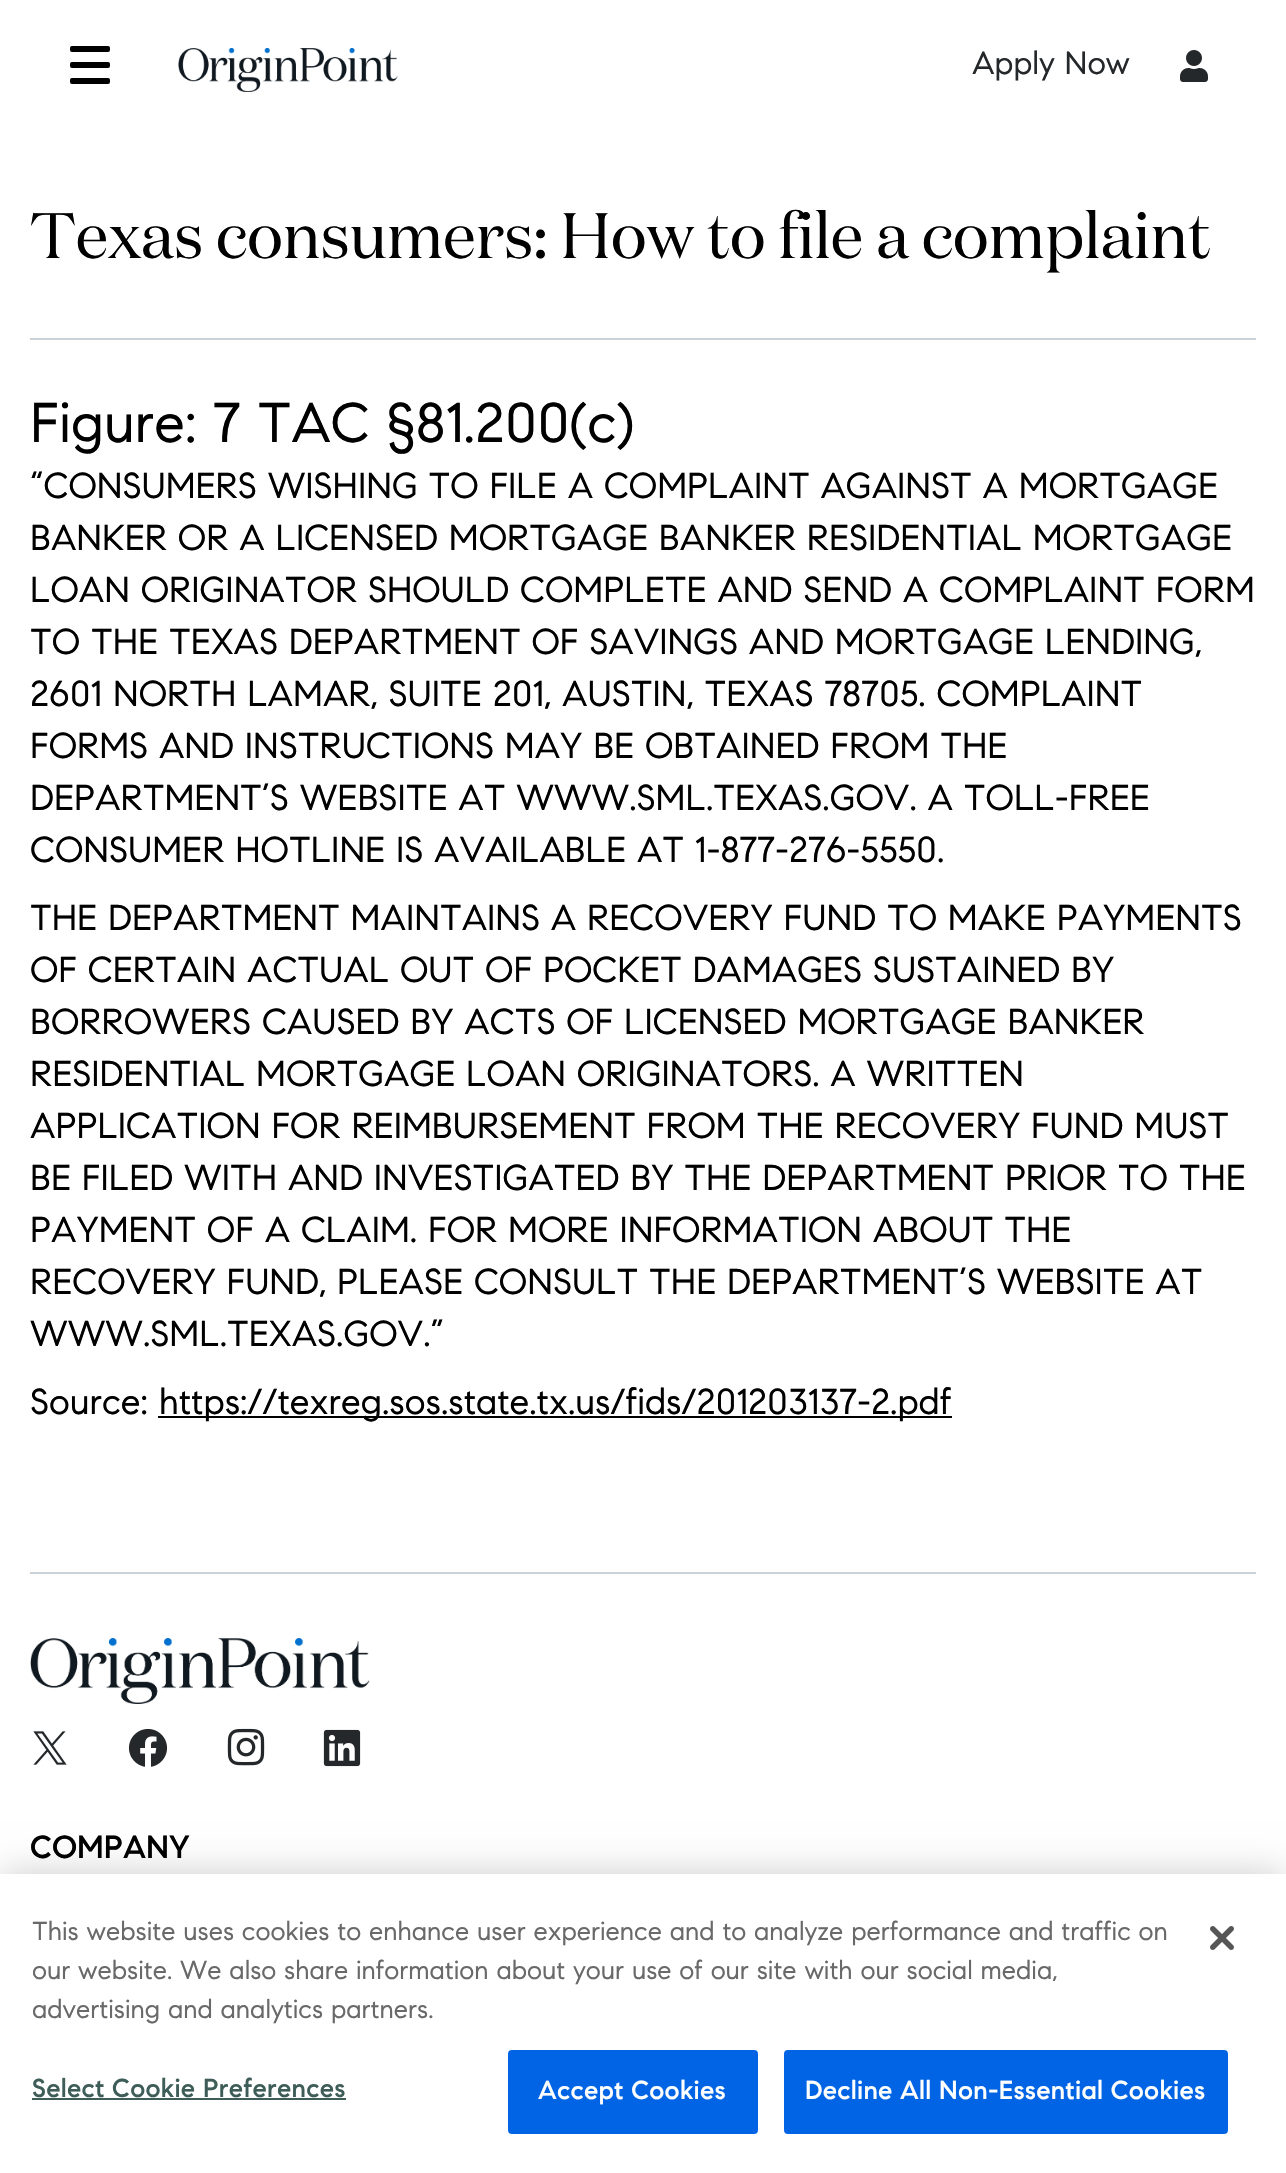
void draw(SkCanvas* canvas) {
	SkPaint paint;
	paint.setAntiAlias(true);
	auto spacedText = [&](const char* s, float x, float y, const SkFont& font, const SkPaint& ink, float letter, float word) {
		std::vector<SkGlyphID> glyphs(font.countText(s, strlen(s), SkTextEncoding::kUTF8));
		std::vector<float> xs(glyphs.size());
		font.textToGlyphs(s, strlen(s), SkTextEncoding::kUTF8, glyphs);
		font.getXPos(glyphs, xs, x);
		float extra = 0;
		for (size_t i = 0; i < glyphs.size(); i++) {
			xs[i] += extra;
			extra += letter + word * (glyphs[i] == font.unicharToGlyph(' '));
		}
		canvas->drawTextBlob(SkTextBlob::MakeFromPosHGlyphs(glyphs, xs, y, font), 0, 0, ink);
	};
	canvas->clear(0xffffffff);
	paint.setColor(0xff000000);
	canvas->drawRoundRect(SkRect::MakeXYWH(70, 46, 40, 6), 2, 2, paint);
	canvas->drawRoundRect(SkRect::MakeXYWH(70, 62, 40, 6), 2, 2, paint);
	canvas->drawRoundRect(SkRect::MakeXYWH(70, 78, 40, 6), 2, 2, paint);
	canvas->drawImageRect(SkImages::DeferredFromEncodedData(SkData::MakeFromFileName("img1.png")), SkRect::MakeXYWH(178, 48, 220, 44), SkSamplingOptions());
	SkFont f1(fontMgr->matchFamilyStyle("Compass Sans", SkFontStyle::Normal()), 32);
	f1.setSubpixel(true);
	paint.setColor(0xff25282a);
	canvas->drawString("Apply Now", 972, 74, f1, paint);
	canvas->drawImageRect(SkImages::DeferredFromEncodedData(SkData::MakeFromFileName("img2.png")), SkRect::MakeXYWH(1180, 50, 28, 32), SkSamplingOptions());
	paint.setColor(0xffcad2d7);
	canvas->drawRect(SkRect::MakeXYWH(30, 338, 1226, 2), paint);
	SkFont f2(fontMgr->matchFamilyStyle("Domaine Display", SkFontStyle::Normal()), 64);
	f2.setSubpixel(true);
	paint.setColor(0xff000000);
	canvas->drawString("Texas consumers: How to file a complaint", 30, 258, f2, paint);
	SkFont f3(fontMgr->matchFamilyStyle("Compass Sans", SkFontStyle::Normal()), 56);
	f3.setSubpixel(true);
	canvas->drawString("Figure: 7 TAC §81.200(c)", 30, 442, f3, paint);
	SkFont f4(fontMgr->matchFamilyStyle("Compass Sans", SkFontStyle::Normal()), 36);
	f4.setSubpixel(true);
	canvas->drawString("“CONSUMERS WISHING TO FILE A COMPLAINT AGAINST A MORTGAGE", 30, 498, f4, paint);
	canvas->drawString("BANKER OR A LICENSED MORTGAGE BANKER RESIDENTIAL MORTGAGE", 30, 550, f4, paint);
	canvas->drawString("LOAN ORIGINATOR SHOULD COMPLETE AND SEND A COMPLAINT FORM", 30, 602, f4, paint);
	canvas->drawString("TO THE TEXAS DEPARTMENT OF SAVINGS AND MORTGAGE LENDING,", 30, 654, f4, paint);
	canvas->drawString("2601 NORTH LAMAR, SUITE 201, AUSTIN, TEXAS 78705. COMPLAINT", 30, 706, f4, paint);
	canvas->drawString("FORMS AND INSTRUCTIONS MAY BE OBTAINED FROM THE", 30, 758, f4, paint);
	canvas->drawString("DEPARTMENT’S WEBSITE AT WWW.SML.TEXAS.GOV. A TOLL-FREE", 30, 810, f4, paint);
	canvas->drawString("CONSUMER HOTLINE IS AVAILABLE AT 1-877-276-5550.", 30, 862, f4, paint);
	canvas->drawString("THE DEPARTMENT MAINTAINS A RECOVERY FUND TO MAKE PAYMENTS", 30, 930, f4, paint);
	canvas->drawString("OF CERTAIN ACTUAL OUT OF POCKET DAMAGES SUSTAINED BY", 30, 982, f4, paint);
	canvas->drawString("BORROWERS CAUSED BY ACTS OF LICENSED MORTGAGE BANKER", 30, 1034, f4, paint);
	canvas->drawString("RESIDENTIAL MORTGAGE LOAN ORIGINATORS. A WRITTEN", 30, 1086, f4, paint);
	canvas->drawString("APPLICATION FOR REIMBURSEMENT FROM THE RECOVERY FUND MUST", 30, 1138, f4, paint);
	canvas->drawString("BE FILED WITH AND INVESTIGATED BY THE DEPARTMENT PRIOR TO THE", 30, 1190, f4, paint);
	canvas->drawString("PAYMENT OF A CLAIM. FOR MORE INFORMATION ABOUT THE", 30, 1242, f4, paint);
	canvas->drawString("RECOVERY FUND, PLEASE CONSULT THE DEPARTMENT’S WEBSITE AT", 30, 1294, f4, paint);
	canvas->drawString("WWW.SML.TEXAS.GOV.”", 30, 1346, f4, paint);
	canvas->drawString("Source:", 30, 1414, f4, paint);
	canvas->drawRect(SkRect::MakeXYWH(158, 1416, 794, 2), paint);
	canvas->drawString("https://texreg.sos.state.tx.us/fids/201203137-2.pdf", 159, 1414, f4, paint);
	paint.setColor(0xffcad2d7);
	canvas->drawRect(SkRect::MakeXYWH(30, 1572, 1226, 2), paint);
	canvas->drawImageRect(SkImages::DeferredFromEncodedData(SkData::MakeFromFileName("img3.png")), SkRect::MakeXYWH(30, 1638, 340, 66), SkSamplingOptions());
	canvas->drawImageRect(SkImages::DeferredFromEncodedData(SkData::MakeFromFileName("img4.png")), SkRect::MakeXYWH(33, 1731, 34, 34), SkSamplingOptions());
	canvas->drawImageRect(SkImages::DeferredFromEncodedData(SkData::MakeFromFileName("img5.png")), SkRect::MakeXYWH(128, 1729, 40, 38), SkSamplingOptions());
	canvas->drawImageRect(SkImages::DeferredFromEncodedData(SkData::MakeFromFileName("img6.png")), SkRect::MakeXYWH(227, 1728, 38, 38), SkSamplingOptions());
	canvas->drawImageRect(SkImages::DeferredFromEncodedData(SkData::MakeFromFileName("img7.png")), SkRect::MakeXYWH(323, 1729, 38, 38), SkSamplingOptions());
	SkFont f5(fontMgr->matchFamilyStyle("Compass Sans", SkFontStyle(500, SkFontStyle::kNormal_Width, SkFontStyle::kUpright_Slant)), 32);
	f5.setSubpixel(true);
	paint.setColor(0xff000000);
	canvas->drawString("COMPANY", 30, 1858, f5, paint);
	paint.setColor(0x33000000);
	paint.setMaskFilter(SkMaskFilter::MakeBlur(kNormal_SkBlurStyle, 18));
	canvas->drawRect(SkRect::MakeXYWH(0, 1874, 1286, 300), paint);
	paint.setMaskFilter(nullptr);
	paint.setColor(0xffffffff);
	canvas->drawRect(SkRect::MakeXYWH(0, 1874, 1286, 299), paint);
	SkFont f6(fontMgr->matchFamilyStyle("Compass Sans", SkFontStyle::Normal()), 26);
	f6.setSubpixel(true);
	paint.setColor(0xff696969);
	canvas->drawString("This website uses cookies to enhance user experience and to analyze performance and traffic on", 32, 1940, f6, paint);
	canvas->drawString("our website. We also share information about your use of our site with our social media,", 32, 1979, f6, paint);
	canvas->drawString("advertising and analytics partners.", 32, 2018, f6, paint);
	SkFont f7(fontMgr->matchFamilyStyle("Compass Sans", SkFontStyle(500, SkFontStyle::kNormal_Width, SkFontStyle::kUpright_Slant)), 26);
	f7.setSubpixel(true);
	paint.setColor(0xff3e5d58);
	spacedText("Select Cookie Preferences", 32, 2097, f7, paint, 0.25, 0);
	canvas->drawRect(SkRect::MakeXYWH(32, 2098, 314, 2), paint);
	paint.setColor(0xff0064e5);
	canvas->drawRoundRect(SkRect::MakeXYWH(509, 2051, 248, 82), 3, 3, paint);
	paint.setStroke(true);
	paint.setStrokeWidth(2);
	canvas->drawRoundRect(SkRect::MakeXYWH(509, 2051, 248, 82), 3, 3, paint);
	paint.setStroke(false);
	paint.setColor(0xffffffff);
	spacedText("Accept Cookies", 538, 2099, f7, paint, 0.25, 0);
	paint.setColor(0xff0064e5);
	canvas->drawRoundRect(SkRect::MakeXYWH(785, 2051, 442, 82), 3, 3, paint);
	paint.setStroke(true);
	canvas->drawRoundRect(SkRect::MakeXYWH(785, 2051, 442, 82), 3, 3, paint);
	paint.setStroke(false);
	paint.setColor(0xffffffff);
	spacedText("Decline All Non-Essential Cookies", 805, 2099, f7, paint, 0.25, 0);
	canvas->drawImageRect(SkImages::DeferredFromEncodedData(SkData::MakeFromFileName("img8.png")), SkRect::MakeXYWH(1210, 1926, 24, 24), SkSamplingOptions());
}
